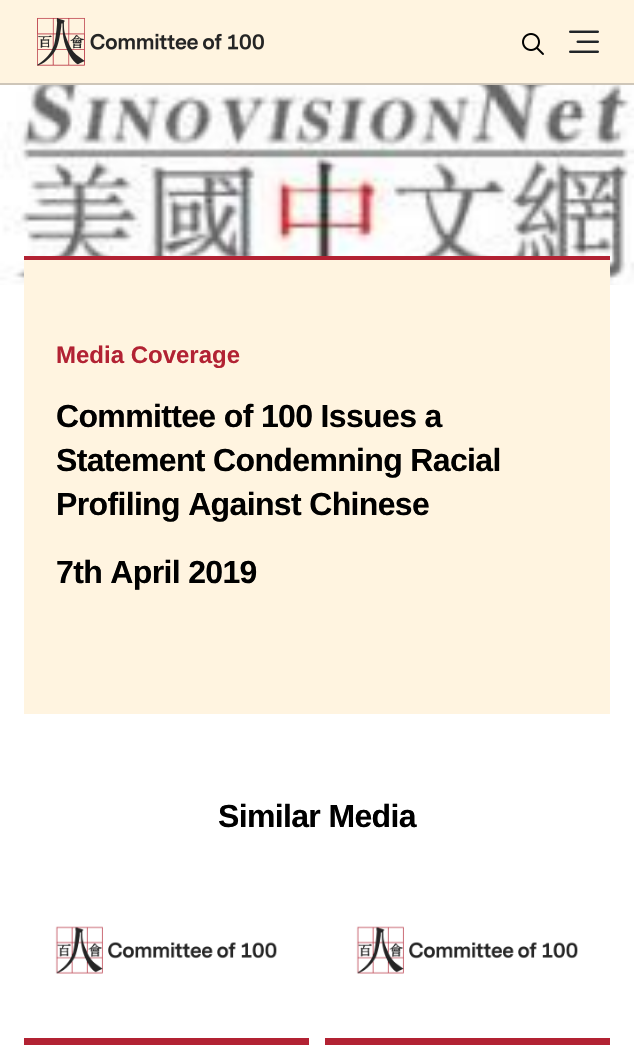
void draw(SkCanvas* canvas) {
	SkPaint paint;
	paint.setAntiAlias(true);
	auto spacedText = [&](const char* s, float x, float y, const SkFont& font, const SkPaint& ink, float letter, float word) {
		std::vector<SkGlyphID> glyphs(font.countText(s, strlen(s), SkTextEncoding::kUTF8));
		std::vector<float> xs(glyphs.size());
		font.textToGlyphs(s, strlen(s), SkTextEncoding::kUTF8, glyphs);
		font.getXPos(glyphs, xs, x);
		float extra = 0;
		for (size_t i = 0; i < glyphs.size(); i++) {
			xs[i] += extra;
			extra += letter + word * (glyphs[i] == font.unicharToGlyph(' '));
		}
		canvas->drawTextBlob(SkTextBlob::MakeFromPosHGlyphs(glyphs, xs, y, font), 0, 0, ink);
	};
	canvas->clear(0xffffffff);
	paint.setColor(0xfffff4e0);
	canvas->drawRect(SkRect::MakeXYWH(0, 0, 634, 83), paint);
	paint.setColor(0xffcec6b9);
	canvas->drawRect(SkRect::MakeXYWH(0, 83, 634, 2), paint);
	canvas->drawImageRect(SkImages::DeferredFromEncodedData(SkData::MakeFromFileName("img1.png")), SkRect::MakeXYWH(37, 17, 227, 49), SkSamplingOptions());
	canvas->drawImageRect(SkImages::DeferredFromEncodedData(SkData::MakeFromFileName("img2.png")), SkRect::MakeXYWH(522, 33, 22, 22), SkSamplingOptions());
	canvas->drawImageRect(SkImages::DeferredFromEncodedData(SkData::MakeFromFileName("img3.png")), SkRect::MakeXYWH(569, 30, 30, 23), SkSamplingOptions());
	canvas->drawImageRect(SkImages::DeferredFromEncodedData(SkData::MakeFromFileName("img4.png")), SkRect::MakeXYWH(0, 85, 634, 200), SkSamplingOptions());
	paint.setColor(0xfffff4e0);
	canvas->drawRect(SkRect::MakeXYWH(24, 260, 586, 454), paint);
	paint.setColor(0xffb22233);
	canvas->drawRect(SkRect::MakeXYWH(24, 256, 586, 4), paint);
	SkFont f1(fontMgr->matchFamilyStyle("Liberation Sans", SkFontStyle::Bold()), 24);
	f1.setSubpixel(true);
	canvas->drawString("Media Coverage", 56, 363, f1, paint);
	SkFont f2(fontMgr->matchFamilyStyle("Liberation Sans", SkFontStyle::Bold()), 32);
	f2.setSubpixel(true);
	paint.setColor(0xff000000);
	spacedText("Committee of 100 Issues a", 56, 427, f2, paint, -0.65, 0);
	spacedText("Statement Condemning Racial", 56, 471, f2, paint, -0.65, 0);
	spacedText("Profiling Against Chinese", 56, 515, f2, paint, -0.65, 0);
	spacedText("7th April 2019", 56, 583, f2, paint, -0.65, 0);
	spacedText("Similar Media", 218, 827, f2, paint, -0.65, 0);
	canvas->drawImageRect(SkImages::DeferredFromEncodedData(SkData::MakeFromFileName("img5.png")), SkRect::MakeXYWH(24, 878, 285, 160), SkSamplingOptions());
	paint.setColor(0xffb22233);
	canvas->drawRect(SkRect::MakeXYWH(24, 1038, 285, 7), paint);
	canvas->drawImageRect(SkImages::DeferredFromEncodedData(SkData::MakeFromFileName("img6.png")), SkRect::MakeXYWH(325, 878, 285, 160), SkSamplingOptions());
	canvas->drawRect(SkRect::MakeXYWH(325, 1038, 285, 7), paint);
}
